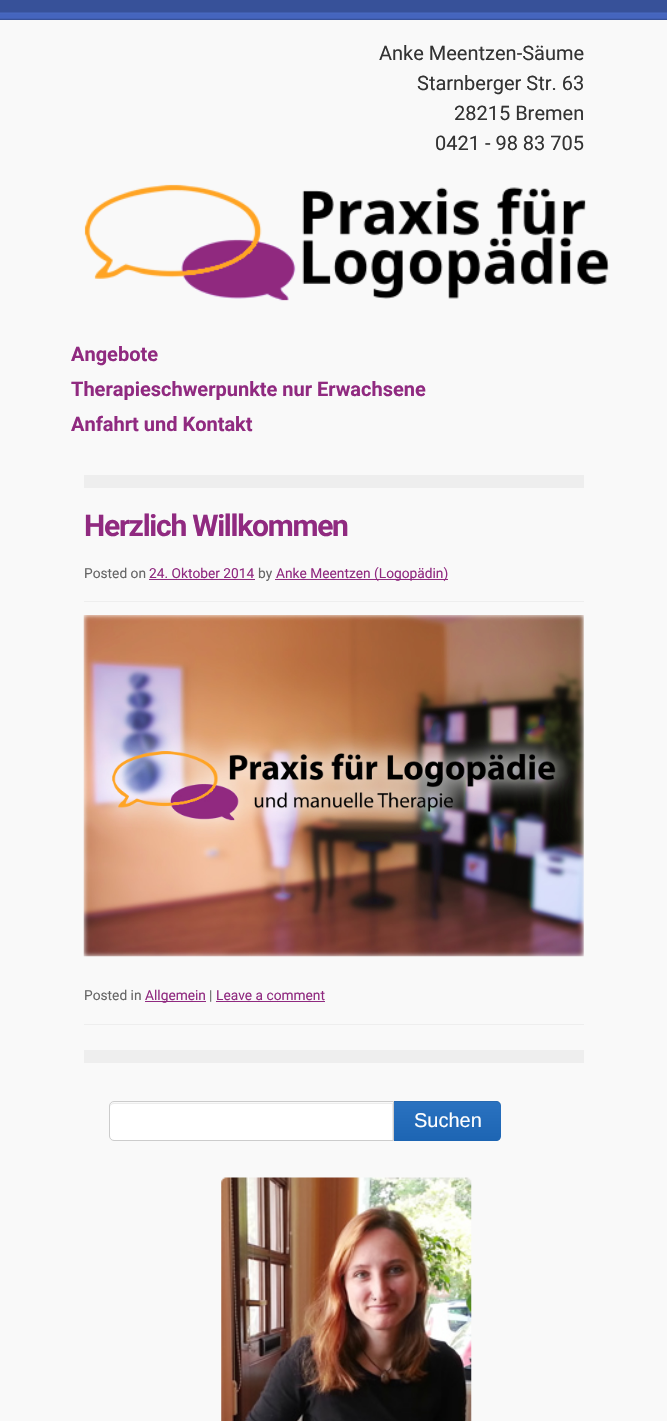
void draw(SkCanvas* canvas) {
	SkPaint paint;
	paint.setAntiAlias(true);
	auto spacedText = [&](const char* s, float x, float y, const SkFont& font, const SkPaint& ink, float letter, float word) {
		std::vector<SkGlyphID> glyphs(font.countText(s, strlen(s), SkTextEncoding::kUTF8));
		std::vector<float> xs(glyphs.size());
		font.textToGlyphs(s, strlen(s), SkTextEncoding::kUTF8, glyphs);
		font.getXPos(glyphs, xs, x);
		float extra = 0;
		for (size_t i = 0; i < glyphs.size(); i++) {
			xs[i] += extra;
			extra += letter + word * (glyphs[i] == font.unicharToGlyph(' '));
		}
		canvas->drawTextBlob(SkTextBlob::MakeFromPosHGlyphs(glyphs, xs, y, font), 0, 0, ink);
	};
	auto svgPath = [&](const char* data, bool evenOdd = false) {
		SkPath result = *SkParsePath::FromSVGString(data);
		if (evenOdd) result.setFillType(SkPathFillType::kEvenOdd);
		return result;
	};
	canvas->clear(0xfff9f9f9);
	canvas->drawImageRect(SkImages::DeferredFromEncodedData(SkData::MakeFromFileName("img1.png")), SkRect::MakeXYWH(0, 0, 667, 20), SkSamplingOptions());
	SkFont f1(fontMgr->matchFamilyStyle("Roboto", SkFontStyle::Normal()), 20);
	f1.setSubpixel(true);
	paint.setColor(0xff333333);
	canvas->drawString("Anke Meentzen-Säume", 379, 60, f1, paint);
	canvas->drawString("Starnberger Str. 63", 417, 90, f1, paint);
	canvas->drawString("28215 Bremen", 454, 120, f1, paint);
	canvas->drawString("0421 - 98 83 705", 435, 150, f1, paint);
	canvas->drawImageRect(SkImages::DeferredFromEncodedData(SkData::MakeFromFileName("img2.png")), SkRect::MakeXYWH(84, 184, 525, 117), SkSamplingOptions());
	SkFont f2(fontMgr->matchFamilyStyle("Roboto", SkFontStyle::Bold()), 20);
	f2.setSubpixel(true);
	paint.setColor(0xff902a80);
	canvas->drawString("Angebote", 71, 361, f2, paint);
	canvas->drawString("Therapieschwerpunkte nur Erwachsene", 71, 396, f2, paint);
	canvas->drawString("Anfahrt und Kontakt", 71, 431, f2, paint);
	paint.setColor(0xffeeeeee);
	canvas->drawRect(SkRect::MakeXYWH(84, 475, 500, 13), paint);
	canvas->drawRect(SkRect::MakeXYWH(84, 1050, 500, 13), paint);
	SkFont f3(fontMgr->matchFamilyStyle("Roboto", SkFontStyle::Bold()), 30);
	f3.setSubpixel(true);
	paint.setColor(0xff902a80);
	spacedText("Herzlich Willkommen", 84, 536, f3, paint, -1.25, 0);
	paint.setColor(0xffeeeeee);
	canvas->drawRect(SkRect::MakeXYWH(84, 601, 500, 1), paint);
	SkFont f4(fontMgr->matchFamilyStyle("Roboto", SkFontStyle::Normal()), 13.75);
	f4.setSubpixel(true);
	paint.setColor(0xff666666);
	canvas->drawString("Posted on", 84, 578, f4, paint);
	paint.setColor(0xff902a80);
	canvas->drawString("24. Oktober 2014", 149, 578, f4, paint);
	canvas->drawRect(SkRect::MakeXYWH(149, 579, 106, 1), paint);
	paint.setColor(0xff666666);
	canvas->drawString("by", 258, 578, f4, paint);
	paint.setColor(0xff902a80);
	canvas->drawRect(SkRect::MakeXYWH(275, 579, 173, 1), paint);
	canvas->drawString("Anke Meentzen (Logopädin)", 276, 578, f4, paint);
	canvas->drawImageRect(SkImages::DeferredFromEncodedData(SkData::MakeFromFileName("img3.png")), SkRect::MakeXYWH(83, 615, 501, 342), SkSamplingOptions());
	paint.setColor(0xffeeeeee);
	canvas->drawRect(SkRect::MakeXYWH(84, 1024, 500, 1), paint);
	paint.setColor(0xff666666);
	canvas->drawString("Posted in", 84, 1000, f4, paint);
	paint.setColor(0xff902a80);
	canvas->drawRect(SkRect::MakeXYWH(145, 1001, 61, 1), paint);
	canvas->drawString("Allgemein", 145, 1000, f4, paint);
	paint.setColor(0xff666666);
	canvas->drawString("|", 209, 1000, f4, paint);
	paint.setColor(0xff902a80);
	canvas->drawString("Leave a comment", 216, 1000, f4, paint);
	canvas->drawRect(SkRect::MakeXYWH(216, 1001, 109, 1), paint);
	paint.setColor(0xffffffff);
	canvas->drawPath(svgPath("M114 1103H393V1140H114C112 1140 110 1138 110 1136V1107C110 1105 112 1103 114 1103Z"), paint);
	paint.setColor(0xffececec);
	canvas->drawPath(svgPath("M114 1104H392V1140H393V1103H114C111 1103 110 1105 110 1108C110 1105 112 1104 114 1104Z"), paint);
	paint.setStroke(true);
	paint.setStrokeWidth(1);
	paint.setColor(0xffcccccc);
	canvas->drawPath(svgPath("M114 1101.5H393.5V1140.5H114C111.5 1140.5 109.5 1138.5 109.5 1136V1106C109.5 1103.5 111.5 1101.5 114 1101.5Z"), paint);
	paint.setStroke(false);
	{
		const SkColor colors[] = {0xff2a72c0, 0xff1d65b3};
		const float stops[] = {0, 1};
		const SkPoint ends[] = {{448, 1101}, {448, 1141}};
		paint.setShader(SkGradientShader::MakeLinear(ends, colors, stops, 2, SkTileMode::kClamp));
		paint.setAlpha(255);
	}
	canvas->drawPath(svgPath("M394 1101H496C499 1101 501 1103 501 1106V1136C501 1139 499 1141 496 1141H394Z"), paint);
	paint.setShader(nullptr);
	paint.setColor(0x12000000);
	canvas->drawPath(svgPath("M394 1102H496C499 1102 501 1105 501 1108V1106C501 1103 499 1101 496 1101H394Z"), paint);
	SkFont f5(fontMgr->matchFamilyStyle("Liberation Sans", SkFontStyle::Normal()), 20);
	f5.setSubpixel(true);
	paint.setColor(0xffffffff);
	canvas->drawString("Suchen", 414, 1127, f5, paint);
	canvas->drawImageRect(SkImages::DeferredFromEncodedData(SkData::MakeFromFileName("img4.png")), SkRect::MakeXYWH(221, 1177, 251, 244), SkSamplingOptions());
}
